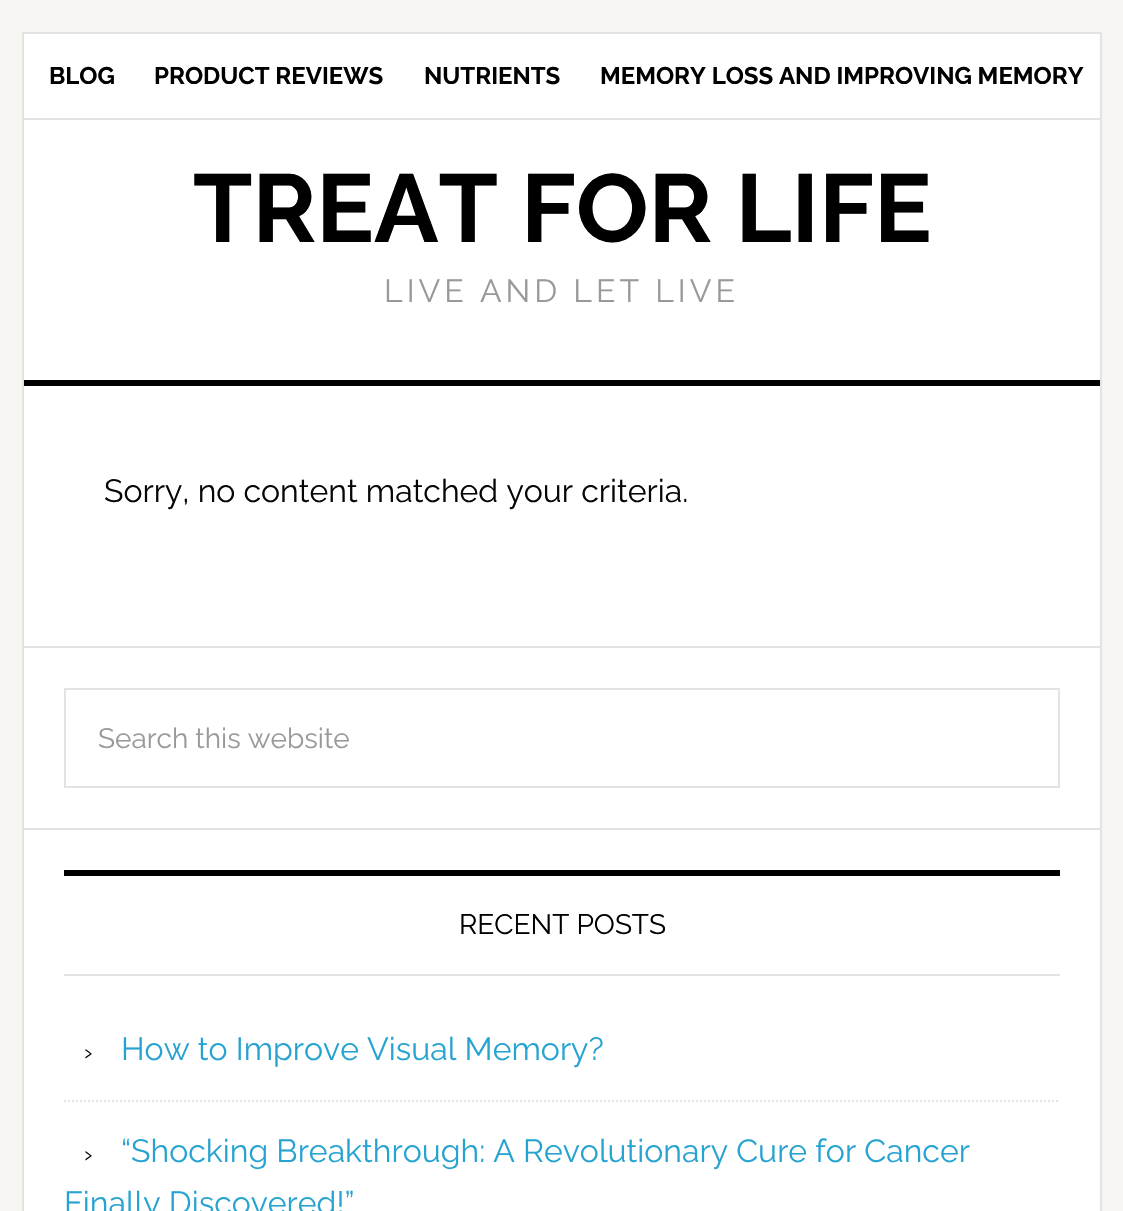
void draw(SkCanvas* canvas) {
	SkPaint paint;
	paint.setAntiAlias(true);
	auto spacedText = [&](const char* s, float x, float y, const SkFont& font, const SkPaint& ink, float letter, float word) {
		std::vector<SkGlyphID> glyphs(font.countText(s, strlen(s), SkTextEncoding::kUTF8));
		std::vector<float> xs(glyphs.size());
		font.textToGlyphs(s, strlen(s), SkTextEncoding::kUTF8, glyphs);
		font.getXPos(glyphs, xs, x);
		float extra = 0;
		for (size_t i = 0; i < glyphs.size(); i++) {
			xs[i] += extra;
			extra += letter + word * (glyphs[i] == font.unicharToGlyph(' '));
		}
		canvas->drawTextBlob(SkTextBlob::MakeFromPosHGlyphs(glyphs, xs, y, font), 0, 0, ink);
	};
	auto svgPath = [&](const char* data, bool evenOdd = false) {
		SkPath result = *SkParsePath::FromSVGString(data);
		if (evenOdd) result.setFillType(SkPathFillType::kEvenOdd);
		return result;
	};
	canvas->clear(0xfff6f5f2);
	paint.setColor(0xffffffff);
	canvas->drawRect(SkRect::MakeXYWH(23, 33, 1078, 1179), paint);
	paint.setStroke(true);
	paint.setStrokeWidth(2);
	paint.setColor(0xffe3e3e3);
	canvas->drawRect(SkRect::MakeXYWH(23, 33, 1078, 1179), paint);
	paint.setStroke(false);
	canvas->drawRect(SkRect::MakeXYWH(24, 118, 1076, 2), paint);
	SkFont f1(fontMgr->matchFamilyStyle("Raleway", SkFontStyle::Bold()), 24);
	f1.setSubpixel(true);
	paint.setColor(0xff000000);
	canvas->drawString("BLOG", 49, 84, f1, paint);
	canvas->drawString("PRODUCT REVIEWS", 154, 84, f1, paint);
	canvas->drawString("NUTRIENTS", 424, 84, f1, paint);
	canvas->drawString("MEMORY LOSS AND IMPROVING MEMORY", 600, 84, f1, paint);
	canvas->drawRect(SkRect::MakeXYWH(24, 380, 1076, 6), paint);
	SkFont f2(fontMgr->matchFamilyStyle("Raleway", SkFontStyle::Bold()), 96);
	f2.setSubpixel(true);
	canvas->drawString("TREAT FOR LIFE", 193, 242, f2, paint);
	SkFont f3(fontMgr->matchFamilyStyle("Raleway", SkFontStyle::Normal()), 32);
	f3.setSubpixel(true);
	paint.setColor(0xff999999);
	spacedText("LIVE AND LET LIVE", 384, 302, f3, paint, 4, 0);
	paint.setColor(0xffe3e3e3);
	canvas->drawRect(SkRect::MakeXYWH(24, 646, 1076, 2), paint);
	paint.setColor(0xff070606);
	canvas->drawString("Sorry, no content matched your criteria.", 104, 502, f3, paint);
	paint.setColor(0xffe3e3e3);
	canvas->drawRect(SkRect::MakeXYWH(24, 828, 1076, 2), paint);
	paint.setStroke(true);
	canvas->drawRect(SkRect::MakeXYWH(65, 689, 994, 98), paint);
	SkFont f4(fontMgr->matchFamilyStyle("Raleway", SkFontStyle::Normal()), 28);
	f4.setSubpixel(true);
	paint.setStroke(false);
	paint.setColor(0xff999999);
	canvas->drawString("Search this website", 98, 748, f4, paint);
	paint.setColor(0xff000000);
	canvas->drawRect(SkRect::MakeXYWH(64, 870, 996, 6), paint);
	paint.setColor(0xffe3e3e3);
	canvas->drawRect(SkRect::MakeXYWH(64, 974, 996, 2), paint);
	paint.setColor(0xff000000);
	canvas->drawString("RECENT POSTS", 459, 934, f4, paint);
	paint.setStroke(true);
	paint.setColor(0xffe3e3e3);
	paint.setPathEffect(SkDashPathEffect::Make({{2, 2}}, 0));
	canvas->drawPath(svgPath("M64 1101H1060"), paint);
	paint.setPathEffect(nullptr);
	SkFont f5(fontMgr->matchFamilyStyle("Raleway", SkFontStyle::Normal()), 24);
	f5.setSubpixel(true);
	paint.setStroke(false);
	paint.setColor(0xff070606);
	canvas->drawString("›", 84, 1060, f5, paint);
	paint.setColor(0xff27a3d1);
	canvas->drawString("How to Improve Visual Memory?", 121, 1060, f3, paint);
	paint.setColor(0xff070606);
	canvas->drawString("›", 84, 1162, f5, paint);
	paint.setColor(0xff27a3d1);
	canvas->drawString("“Shocking Breakthrough: A Revolutionary Cure for Cancer", 121, 1162, f3, paint);
	canvas->drawString("Finally Discovered!”", 64, 1214, f3, paint);
}
